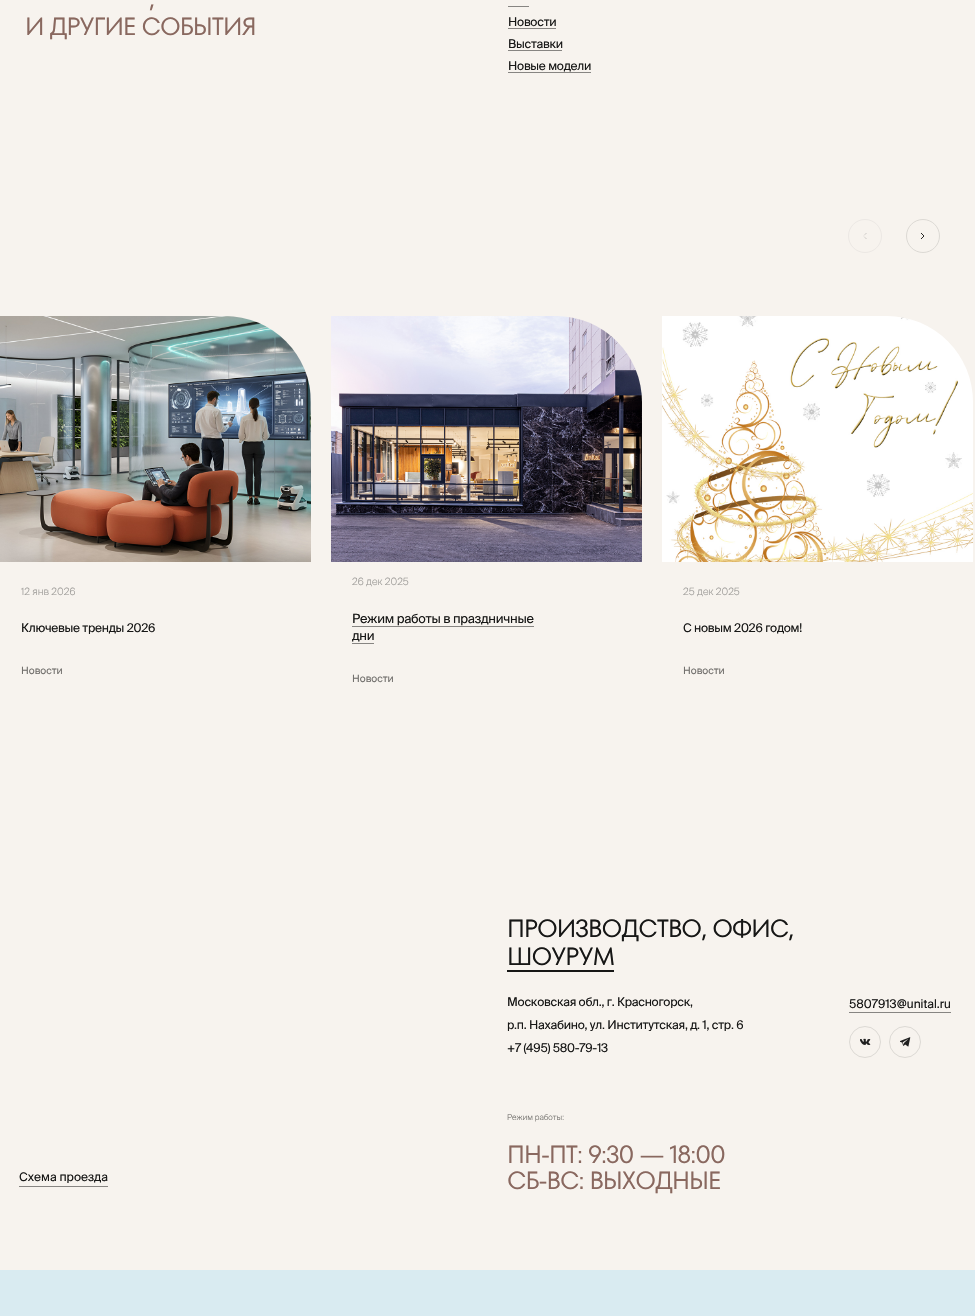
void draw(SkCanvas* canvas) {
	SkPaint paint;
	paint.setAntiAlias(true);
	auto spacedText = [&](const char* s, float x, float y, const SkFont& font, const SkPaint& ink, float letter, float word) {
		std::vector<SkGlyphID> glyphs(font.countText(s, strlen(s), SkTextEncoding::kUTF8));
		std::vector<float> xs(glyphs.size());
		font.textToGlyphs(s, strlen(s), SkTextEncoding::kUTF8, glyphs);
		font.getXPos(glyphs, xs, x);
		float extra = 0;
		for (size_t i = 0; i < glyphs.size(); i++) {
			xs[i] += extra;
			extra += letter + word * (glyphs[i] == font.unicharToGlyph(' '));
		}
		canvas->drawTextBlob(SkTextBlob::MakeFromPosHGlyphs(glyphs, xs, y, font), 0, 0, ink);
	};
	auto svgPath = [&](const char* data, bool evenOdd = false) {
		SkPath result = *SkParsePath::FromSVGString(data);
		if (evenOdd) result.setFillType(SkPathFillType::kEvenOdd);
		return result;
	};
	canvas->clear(0xfff7f3ee);
	SkFont f1(fontMgr->matchFamilyStyle("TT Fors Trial", SkFontStyle::Normal()), 25);
	f1.setSubpixel(true);
	paint.setColor(0xff89685f);
	spacedText(",", 149, 7, f1, paint, -1, 0);
	spacedText("И ДРУГИЕ СОБЫТИЯ", 25, 35, f1, paint, -1, 0);
	paint.setColor(0xff878582);
	canvas->drawRect(SkRect::MakeXYWH(508, 6, 21, 1), paint);
	SkFont f2(fontMgr->matchFamilyStyle("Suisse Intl", SkFontStyle::Normal()), 12);
	f2.setSubpixel(true);
	paint.setColor(0xff171716);
	spacedText("Новости", 508, 26, f2, paint, -0.25, 0);
	paint.setColor(0xff878582);
	canvas->drawRect(SkRect::MakeXYWH(508, 28, 48, 1), paint);
	paint.setColor(0xff171716);
	spacedText("Выставки", 508, 48, f2, paint, -0.25, 0);
	paint.setColor(0xff878582);
	canvas->drawRect(SkRect::MakeXYWH(508, 50, 54, 1), paint);
	paint.setColor(0xff171716);
	spacedText("Новые модели", 508, 70, f2, paint, -0.25, 0);
	paint.setColor(0xff878582);
	canvas->drawRect(SkRect::MakeXYWH(508, 72, 83, 1), paint);
	paint.setStroke(true);
	paint.setStrokeWidth(1);
	paint.setColor(0xffece8e4);
	canvas->drawCircle(865, 236, 16.5, paint);
	paint.setColor(0xff9d9b98);
	canvas->drawPath(svgPath("M866.5 233L864 236L866.5 239"), paint);
	paint.setColor(0xfff7f3ee);
	canvas->drawPath(svgPath("M866.5 233L864 236L866.5 239"), paint);
	paint.setColor(0xffdcd9d4);
	canvas->drawCircle(923, 236, 16.5, paint);
	canvas->save();
	canvas->clipRect(SkRect::MakeXYWH(921, 233, 4, 6));
	paint.setColor(0xff171716);
	canvas->drawPath(svgPath("M921 239L924 236L921 233"), paint);
	paint.setColor(0xff2a2928);
	canvas->drawPath(svgPath("M921 239L924 236L921 233"), paint);
	canvas->restore();
	canvas->drawImageRect(SkImages::DeferredFromEncodedData(SkData::MakeFromFileName("img1.png")), SkRect::MakeXYWH(0, 316, 311, 246), SkSamplingOptions());
	SkFont f3(fontMgr->matchFamilyStyle("Suisse Intl", SkFontStyle(300, SkFontStyle::kNormal_Width, SkFontStyle::kUpright_Slant)), 10);
	f3.setSubpixel(true);
	paint.setStroke(false);
	paint.setColor(0xff9d9b98);
	canvas->drawString("12 янв 2026", 21, 595, f3, paint);
	paint.setColor(0xff171716);
	spacedText("Ключевые тренды 2026", 21, 632, f2, paint, -0.25, 0);
	SkFont f4(fontMgr->matchFamilyStyle("Suisse Intl", SkFontStyle::Normal()), 10);
	f4.setSubpixel(true);
	paint.setColor(0xff716f6c);
	canvas->drawString("Новости", 21, 674, f4, paint);
	canvas->drawImageRect(SkImages::DeferredFromEncodedData(SkData::MakeFromFileName("img2.png")), SkRect::MakeXYWH(331, 316, 311, 246), SkSamplingOptions());
	paint.setColor(0xff9d9b98);
	canvas->drawString("26 дек 2025", 352, 585, f3, paint);
	SkFont f5(fontMgr->matchFamilyStyle("Suisse Intl", SkFontStyle::Normal()), 12.75);
	f5.setSubpixel(true);
	paint.setColor(0xff171716);
	spacedText("Режим работы в праздничные", 352, 623, f5, paint, -0.25, 0);
	paint.setColor(0xff878582);
	canvas->drawRect(SkRect::MakeXYWH(352, 626, 182, 1), paint);
	paint.setColor(0xff171716);
	spacedText("дни", 352, 640, f5, paint, -0.25, 0);
	paint.setColor(0xff878582);
	canvas->drawRect(SkRect::MakeXYWH(352, 643, 22, 1), paint);
	paint.setColor(0xff716f6c);
	canvas->drawString("Новости", 352, 682, f4, paint);
	canvas->drawImageRect(SkImages::DeferredFromEncodedData(SkData::MakeFromFileName("img3.png")), SkRect::MakeXYWH(662, 316, 311, 246), SkSamplingOptions());
	paint.setColor(0xff9d9b98);
	canvas->drawString("25 дек 2025", 683, 595, f3, paint);
	paint.setColor(0xff171716);
	spacedText("С новым 2026 годом!", 683, 632, f2, paint, -0.25, 0);
	paint.setColor(0xff716f6c);
	canvas->drawString("Новости", 683, 674, f4, paint);
	paint.setColor(0xff171716);
	canvas->drawString("Схема проезда", 19, 1181, f2, paint);
	paint.setColor(0xff878582);
	canvas->drawRect(SkRect::MakeXYWH(19, 1186, 89, 1), paint);
	paint.setColor(0xff171716);
	spacedText("ПРОИЗВОДСТВО, ОФИС,", 507, 937, f1, paint, -1, 0);
	spacedText("ШОУРУМ", 507, 965, f1, paint, -1, 0);
	canvas->drawRect(SkRect::MakeXYWH(507, 970, 107, 2), paint);
	spacedText("Московская обл., г. Красногорск,", 507, 1006, f2, paint, -0.25, 0);
	spacedText("р.п. Нахабино, ул. Институтская, д. 1, стр. 6", 507, 1029, f2, paint, -0.25, 0);
	spacedText("+7 (495) 580-79-13", 507, 1052, f2, paint, -0.25, 0);
	canvas->drawString("5807913@unital.ru", 849, 1008, f2, paint);
	paint.setColor(0xff878582);
	canvas->drawRect(SkRect::MakeXYWH(849, 1012, 102, 1), paint);
	paint.setStroke(true);
	paint.setColor(0xffdcd9d4);
	canvas->drawCircle(865, 1042, 15.5, paint);
	canvas->drawImageRect(SkImages::DeferredFromEncodedData(SkData::MakeFromFileName("img4.png")), SkRect::MakeXYWH(860, 1038, 11, 7), SkSamplingOptions());
	canvas->drawCircle(905, 1042, 15.5, paint);
	canvas->drawImageRect(SkImages::DeferredFromEncodedData(SkData::MakeFromFileName("img5.png")), SkRect::MakeXYWH(900, 1037, 11, 10), SkSamplingOptions());
	SkFont f6(fontMgr->matchFamilyStyle("Suisse Intl", SkFontStyle(300, SkFontStyle::kNormal_Width, SkFontStyle::kUpright_Slant)), 8);
	f6.setSubpixel(true);
	paint.setStroke(false);
	paint.setColor(0xff716f6c);
	canvas->drawString("Режим работы:", 507, 1120, f6, paint);
	paint.setColor(0xff89685f);
	spacedText("ПН-ПТ: 9:30 — 18:00", 507, 1163, f1, paint, -1, 0);
	spacedText("СБ-ВС: ВЫХОДНЫЕ", 507, 1189, f1, paint, -1, 0);
	paint.setColor(0xffd9ebf1);
	canvas->drawRect(SkRect::MakeXYWH(0, 1270, 975, 46), paint);
}
